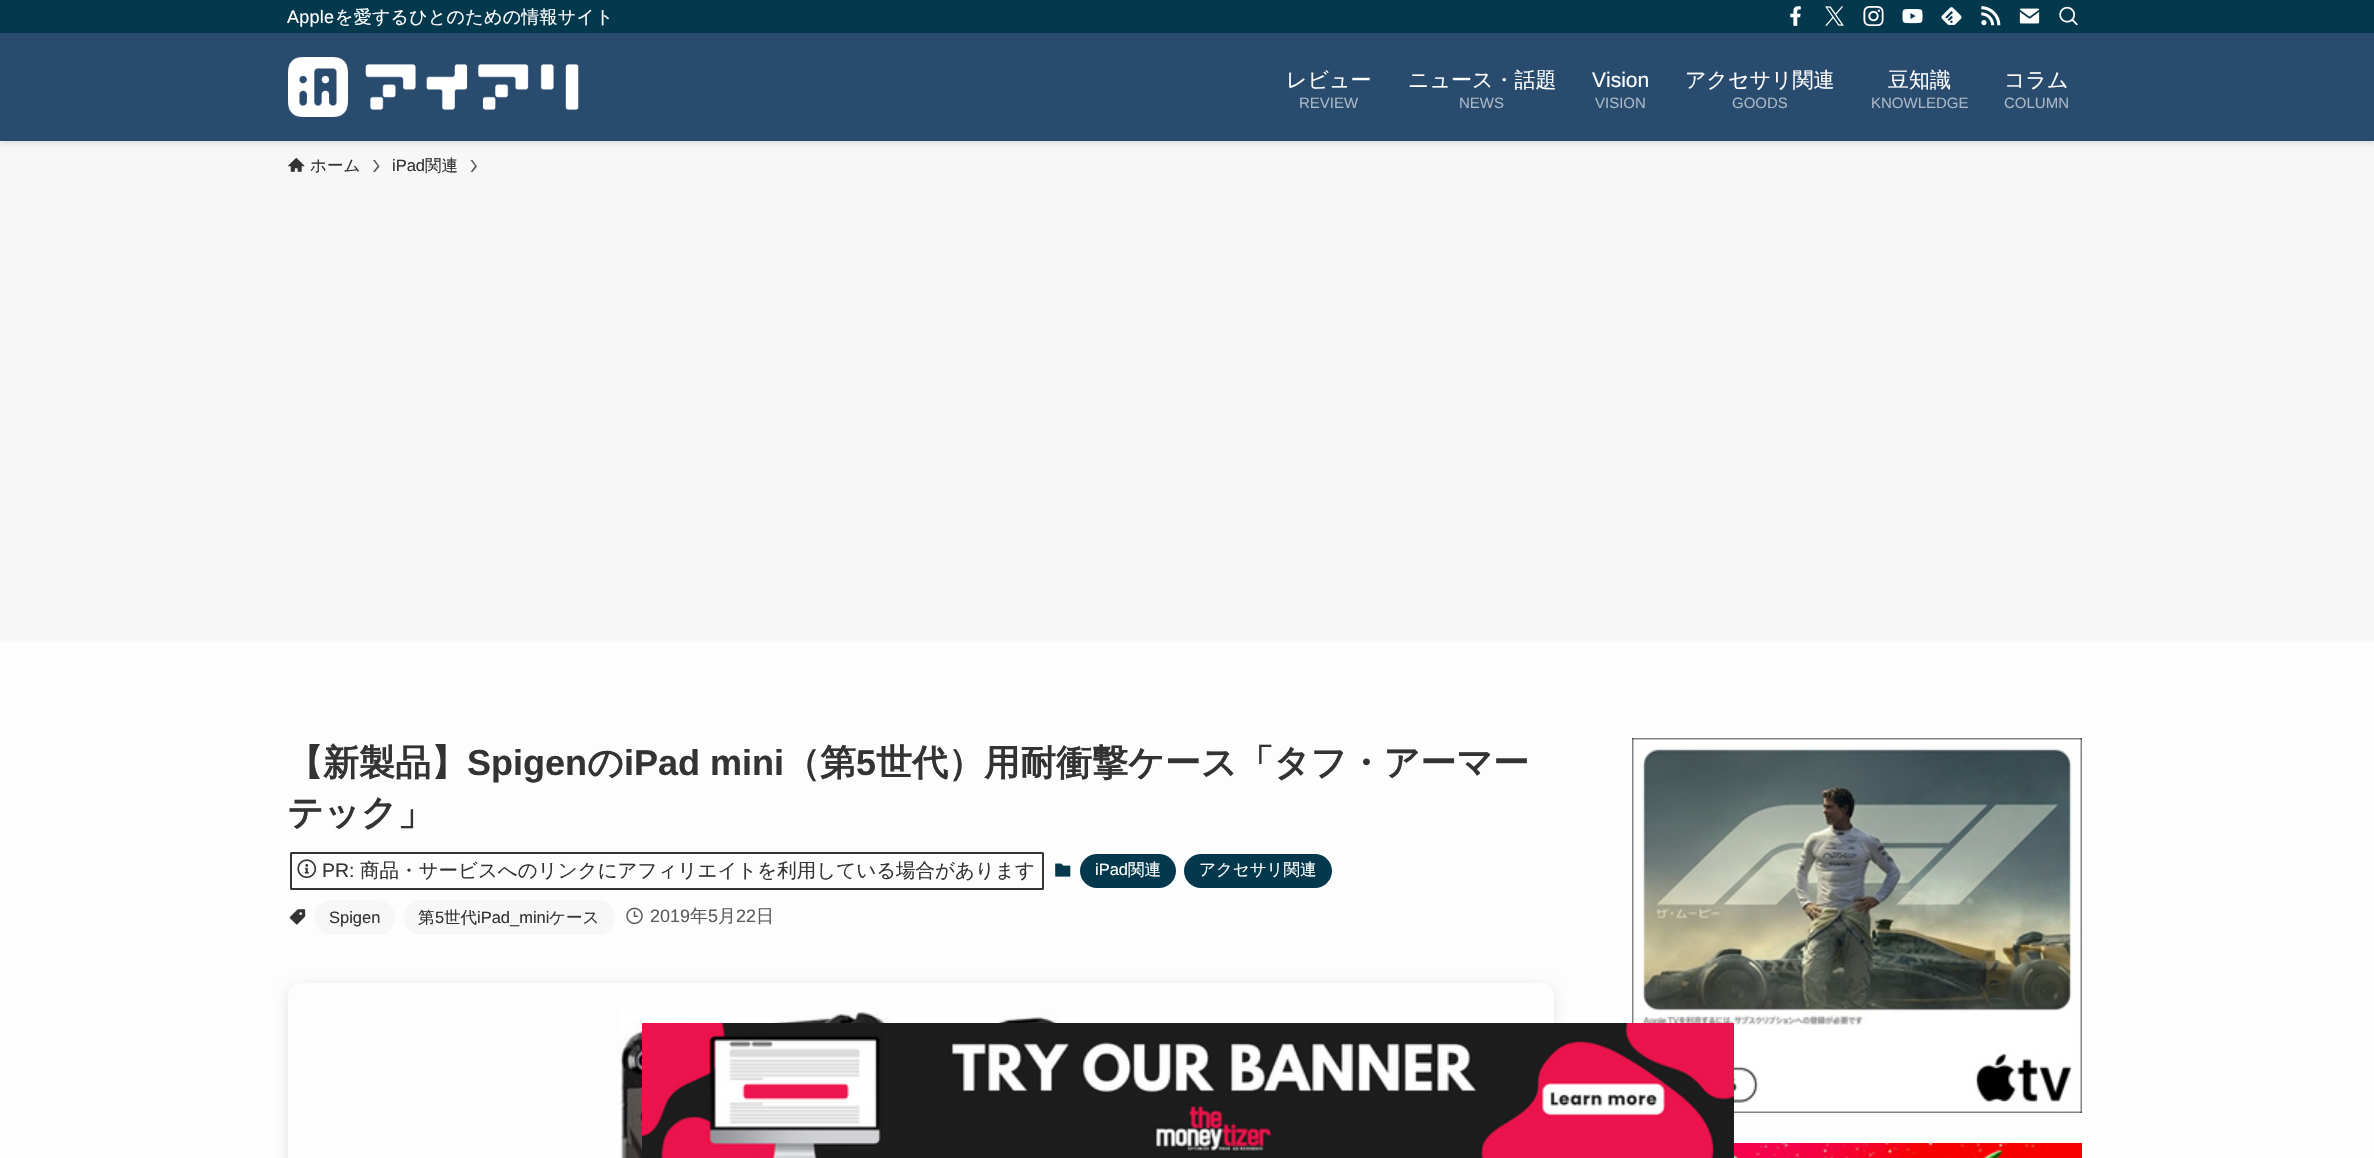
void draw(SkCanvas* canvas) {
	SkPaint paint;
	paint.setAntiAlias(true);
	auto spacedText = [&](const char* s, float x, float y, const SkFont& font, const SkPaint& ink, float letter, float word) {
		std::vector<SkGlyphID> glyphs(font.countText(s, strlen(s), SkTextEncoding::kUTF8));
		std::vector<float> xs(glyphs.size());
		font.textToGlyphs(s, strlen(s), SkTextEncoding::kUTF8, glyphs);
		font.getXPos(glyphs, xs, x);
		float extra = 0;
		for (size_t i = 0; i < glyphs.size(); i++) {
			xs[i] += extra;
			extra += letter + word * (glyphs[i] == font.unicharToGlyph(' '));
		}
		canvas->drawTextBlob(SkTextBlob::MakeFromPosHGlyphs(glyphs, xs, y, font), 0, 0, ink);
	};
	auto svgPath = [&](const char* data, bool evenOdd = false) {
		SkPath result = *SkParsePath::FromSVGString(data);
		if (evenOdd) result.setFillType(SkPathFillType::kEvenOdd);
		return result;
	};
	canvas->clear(0xfffdfdfd);
	paint.setColor(0xfff7f7f7);
	canvas->drawRect(SkRect::MakeXYWH(0, 141, 2374, 501), paint);
	paint.setColor(0x1f000000);
	paint.setMaskFilter(SkMaskFilter::MakeBlur(kNormal_SkBlurStyle, 3));
	canvas->drawRect(SkRect::MakeXYWH(0, 2, 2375, 141), paint);
	paint.setMaskFilter(nullptr);
	paint.setColor(0xff284b6e);
	canvas->drawRect(SkRect::MakeXYWH(0, 33, 2374, 108), paint);
	paint.setColor(0xff04384c);
	canvas->drawRect(SkRect::MakeXYWH(0, 0, 2374, 33), paint);
	SkFont f1(fontMgr->matchFamilyStyle("Liberation Sans", SkFontStyle::Normal()), 18);
	f1.setSubpixel(true);
	paint.setColor(0xffffffff);
	spacedText("Apple", 287, 23, f1, paint, 0.25, 0);
	SkFont f2(fontMgr->matchFamilyStyle("WenQuanYi Zen Hei", SkFontStyle(500, SkFontStyle::kNormal_Width, SkFontStyle::kUpright_Slant)), 18);
	f2.setSubpixel(true);
	spacedText("を愛するひとのための情報サイト", 335, 23, f2, paint, 0.25, 0);
	canvas->drawImageRect(SkImages::DeferredFromEncodedData(SkData::MakeFromFileName("img1.png")), SkRect::MakeXYWH(1790, 6, 11, 20), SkSamplingOptions());
	canvas->drawImageRect(SkImages::DeferredFromEncodedData(SkData::MakeFromFileName("img2.png")), SkRect::MakeXYWH(1825, 6, 19, 20), SkSamplingOptions());
	canvas->drawImageRect(SkImages::DeferredFromEncodedData(SkData::MakeFromFileName("img3.png")), SkRect::MakeXYWH(1863, 6, 21, 21), SkSamplingOptions());
	canvas->drawImageRect(SkImages::DeferredFromEncodedData(SkData::MakeFromFileName("img4.png")), SkRect::MakeXYWH(1902, 9, 21, 15), SkSamplingOptions());
	canvas->drawImageRect(SkImages::DeferredFromEncodedData(SkData::MakeFromFileName("img5.png")), SkRect::MakeXYWH(1941, 7, 21, 18), SkSamplingOptions());
	canvas->drawImageRect(SkImages::DeferredFromEncodedData(SkData::MakeFromFileName("img6.png")), SkRect::MakeXYWH(1981, 6, 20, 20), SkSamplingOptions());
	canvas->drawImageRect(SkImages::DeferredFromEncodedData(SkData::MakeFromFileName("img7.png")), SkRect::MakeXYWH(2019, 8, 21, 16), SkSamplingOptions());
	canvas->drawImageRect(SkImages::DeferredFromEncodedData(SkData::MakeFromFileName("img8.png")), SkRect::MakeXYWH(2059, 6, 19, 20), SkSamplingOptions());
	canvas->drawImageRect(SkImages::DeferredFromEncodedData(SkData::MakeFromFileName("img9.png")), SkRect::MakeXYWH(288, 57, 291, 60), SkSamplingOptions());
	SkFont f3(fontMgr->matchFamilyStyle("WenQuanYi Zen Hei", SkFontStyle(500, SkFontStyle::kNormal_Width, SkFontStyle::kUpright_Slant)), 21);
	f3.setSubpixel(true);
	canvas->drawString("レビュー", 1286, 87, f3, paint);
	SkFont f4(fontMgr->matchFamilyStyle("Liberation Sans", SkFontStyle::Normal()), 15);
	f4.setSubpixel(true);
	paint.setColor(0xffa9b7c5);
	canvas->drawString("REVIEW", 1299, 108, f4, paint);
	paint.setColor(0xffffffff);
	canvas->drawString("ニュース・話題", 1408, 87, f3, paint);
	paint.setColor(0xffa9b7c5);
	canvas->drawString("NEWS", 1459, 108, f4, paint);
	SkFont f5(fontMgr->matchFamilyStyle("Liberation Sans", SkFontStyle::Normal()), 21);
	f5.setSubpixel(true);
	paint.setColor(0xffffffff);
	canvas->drawString("Vision", 1592, 87, f5, paint);
	paint.setColor(0xffa9b7c5);
	canvas->drawString("VISION", 1595, 108, f4, paint);
	paint.setColor(0xffffffff);
	canvas->drawString("アクセサリ関連", 1685, 87, f3, paint);
	paint.setColor(0xffa9b7c5);
	canvas->drawString("GOODS", 1732, 108, f4, paint);
	paint.setColor(0xffffffff);
	canvas->drawString("豆知識", 1888, 87, f3, paint);
	paint.setColor(0xffa9b7c5);
	canvas->drawString("KNOWLEDGE", 1871, 108, f4, paint);
	paint.setColor(0xffffffff);
	canvas->drawString("コラム", 2004, 87, f3, paint);
	paint.setColor(0xffa9b7c5);
	canvas->drawString("COLUMN", 2004, 108, f4, paint);
	canvas->drawImageRect(SkImages::DeferredFromEncodedData(SkData::MakeFromFileName("img10.png")), SkRect::MakeXYWH(288, 157, 17, 15), SkSamplingOptions());
	SkFont f6(fontMgr->matchFamilyStyle("WenQuanYi Zen Hei", SkFontStyle(500, SkFontStyle::kNormal_Width, SkFontStyle::kUpright_Slant)), 16.5);
	f6.setSubpixel(true);
	paint.setColor(0xff333333);
	canvas->drawString("ホーム", 310, 171, f6, paint);
	paint.setColor(0xff5a5a5a);
	canvas->drawPath(svgPath("M375 160H373L377.5 166L373 172H375L379.5 166.5Z"), paint);
	SkFont f7(fontMgr->matchFamilyStyle("Liberation Sans", SkFontStyle::Normal()), 16.5);
	f7.setSubpixel(true);
	paint.setColor(0xff333333);
	canvas->drawString("iPad", 392, 171, f7, paint);
	canvas->drawString("関連", 425, 171, f6, paint);
	paint.setColor(0xff5a5a5a);
	canvas->drawPath(svgPath("M472.5 160H470.5L475 166L470.5 172H472.5L477 166.5Z"), paint);
	SkFont f8(fontMgr->matchFamilyStyle("WenQuanYi Zen Hei", SkFontStyle::Bold()), 36);
	f8.setSubpixel(true);
	paint.setColor(0xff333333);
	canvas->drawString("【新製品】", 287, 775, f8, paint);
	SkFont f9(fontMgr->matchFamilyStyle("Liberation Sans", SkFontStyle::Bold()), 36);
	f9.setSubpixel(true);
	canvas->drawString("Spigen", 467, 775, f9, paint);
	canvas->drawString("の", 587, 775, f8, paint);
	canvas->drawString("iPad mini", 624, 775, f9, paint);
	canvas->drawString("（第", 784, 775, f8, paint);
	canvas->drawString("5", 856, 775, f9, paint);
	canvas->drawString("世代）用耐衝撃ケース「タフ・アーマー", 876, 775, f8, paint);
	canvas->drawString("テック」", 287, 825, f8, paint);
	paint.setStroke(true);
	paint.setStrokeWidth(2);
	canvas->drawRoundRect(SkRect::MakeXYWH(291, 853, 752, 36), 0.5, 0.5, paint);
	canvas->drawImageRect(SkImages::DeferredFromEncodedData(SkData::MakeFromFileName("img11.png")), SkRect::MakeXYWH(297, 859, 20, 20), SkSamplingOptions());
	SkFont f10(fontMgr->matchFamilyStyle("Liberation Sans", SkFontStyle::Normal()), 19.5);
	f10.setSubpixel(true);
	paint.setStroke(false);
	canvas->drawString("PR:", 322, 877, f10, paint);
	SkFont f11(fontMgr->matchFamilyStyle("WenQuanYi Zen Hei", SkFontStyle(500, SkFontStyle::kNormal_Width, SkFontStyle::kUpright_Slant)), 19.5);
	f11.setSubpixel(true);
	canvas->drawString("商品・サービスへのリンクにアフィリエイトを利用している場合があります", 360, 877, f11, paint);
	canvas->drawImageRect(SkImages::DeferredFromEncodedData(SkData::MakeFromFileName("img12.png")), SkRect::MakeXYWH(1055, 863, 16, 14), SkSamplingOptions());
	paint.setColor(0xff04384c);
	canvas->drawRoundRect(SkRect::MakeXYWH(1080, 854, 96, 34), 17, 17, paint);
	paint.setColor(0xffffffff);
	canvas->drawString("iPad", 1095, 875, f7, paint);
	canvas->drawString("関連", 1128, 875, f6, paint);
	paint.setColor(0xff04384c);
	canvas->drawRoundRect(SkRect::MakeXYWH(1184, 854, 148, 34), 17, 17, paint);
	paint.setColor(0xffffffff);
	canvas->drawString("アクセサリ関連", 1199, 875, f6, paint);
	canvas->drawImageRect(SkImages::DeferredFromEncodedData(SkData::MakeFromFileName("img13.png")), SkRect::MakeXYWH(289, 909, 17, 16), SkSamplingOptions());
	paint.setColor(0xfff7f7f7);
	canvas->drawRoundRect(SkRect::MakeXYWH(314, 900, 81, 35), 17.5, 17.5, paint);
	paint.setColor(0xff333333);
	canvas->drawString("Spigen", 329, 923, f7, paint);
	paint.setColor(0xfff7f7f7);
	canvas->drawRoundRect(SkRect::MakeXYWH(404, 900, 211, 35), 17.5, 17.5, paint);
	paint.setColor(0xff333333);
	canvas->drawString("第", 418, 923, f6, paint);
	canvas->drawString("5", 435, 923, f7, paint);
	canvas->drawString("世代", 444, 923, f6, paint);
	canvas->drawString("iPad_mini", 477, 923, f7, paint);
	canvas->drawString("ケース", 549, 923, f6, paint);
	canvas->drawImageRect(SkImages::DeferredFromEncodedData(SkData::MakeFromFileName("img14.png")), SkRect::MakeXYWH(626, 907, 17, 18), SkSamplingOptions());
	paint.setColor(0xff5b5b5b);
	canvas->drawString("2019", 650, 922, f1, paint);
	canvas->drawString("年", 690, 922, f2, paint);
	canvas->drawString("5", 708, 922, f1, paint);
	canvas->drawString("月", 718, 922, f2, paint);
	canvas->drawString("22", 736, 922, f1, paint);
	canvas->drawString("日", 756, 922, f2, paint);
	canvas->save();
	canvas->clipPath(svgPath("M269 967H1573V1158H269ZM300 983H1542C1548.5 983 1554 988.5 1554 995V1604C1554 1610.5 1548.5 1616 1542 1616H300C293.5 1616 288 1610.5 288 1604V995C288 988.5 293.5 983 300 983Z", true), true);
	paint.setColor(0x1a000000);
	paint.setMaskFilter(SkMaskFilter::MakeBlur(kNormal_SkBlurStyle, 6));
	canvas->drawRoundRect(SkRect::MakeXYWH(288, 986, 1266, 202), 12, 12, paint);
	paint.setMaskFilter(nullptr);
	canvas->restore();
	canvas->drawImageRect(SkImages::DeferredFromEncodedData(SkData::MakeFromFileName("img15.png")), SkRect::MakeXYWH(619, 1010, 937, 148), SkSamplingOptions());
	canvas->drawImageRect(SkImages::DeferredFromEncodedData(SkData::MakeFromFileName("img16.png")), SkRect::MakeXYWH(1632, 738, 450, 375), SkSamplingOptions());
	canvas->drawImageRect(SkImages::DeferredFromEncodedData(SkData::MakeFromFileName("img17.png")), SkRect::MakeXYWH(1734, 1143, 348, 15), SkSamplingOptions());
	canvas->drawImageRect(SkImages::DeferredFromEncodedData(SkData::MakeFromFileName("img18.png")), SkRect::MakeXYWH(1556, 1023, 178, 135), SkSamplingOptions());
}
